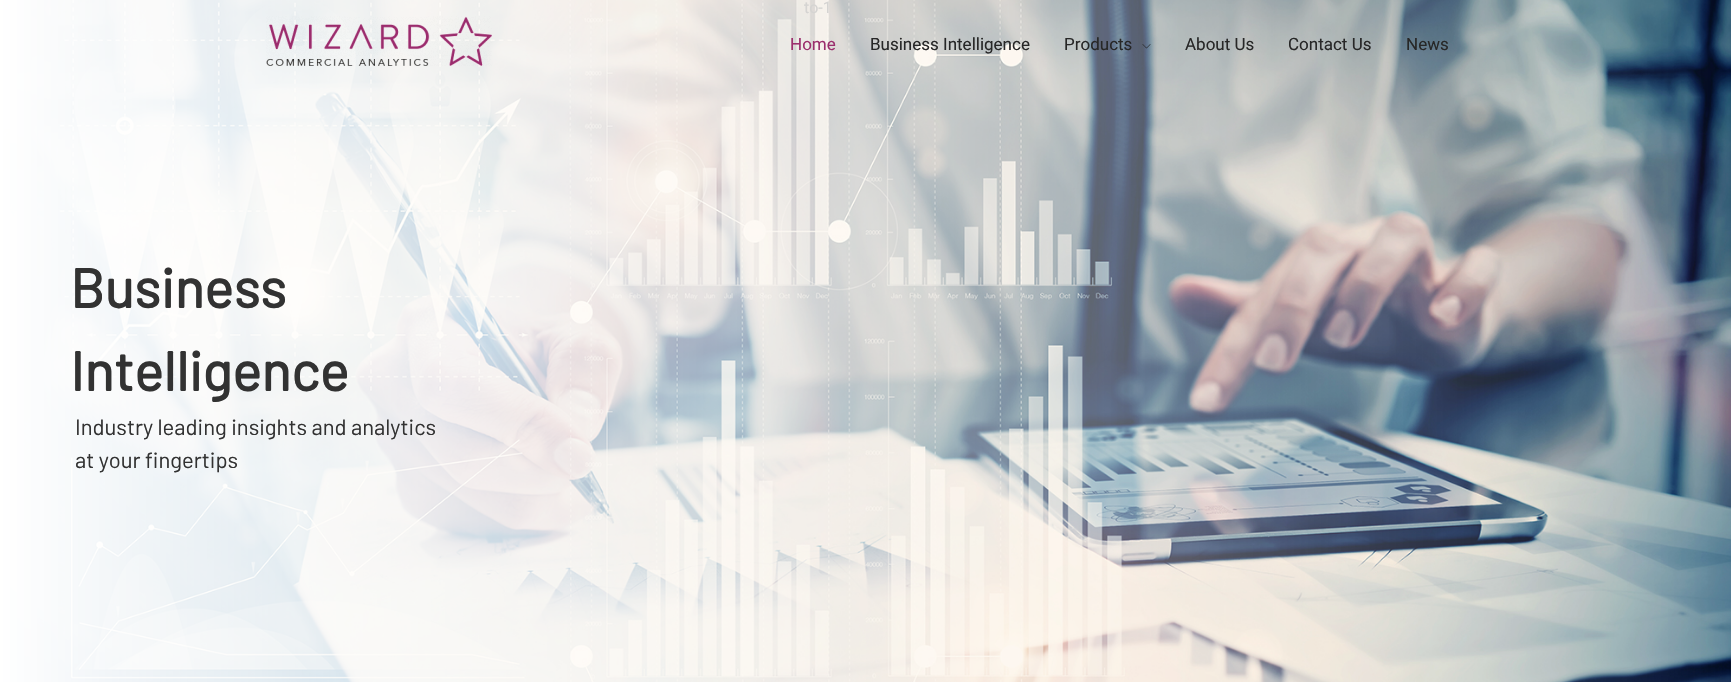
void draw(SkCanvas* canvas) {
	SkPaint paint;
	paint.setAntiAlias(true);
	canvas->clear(0xffffffff);
	canvas->drawImageRect(SkImages::DeferredFromEncodedData(SkData::MakeFromFileName("img1.png")), SkRect::MakeXYWH(0, 0, 1731, 682), SkSamplingOptions());
	SkFont f1(fontMgr->matchFamilyStyle("Roboto", SkFontStyle::Normal()), 16);
	f1.setSubpixel(true);
	paint.setColor(0xffd5d4d2);
	canvas->drawString("to-1", 804, 13, f1, paint);
	SkFont f2(fontMgr->matchFamilyStyle("Barlow", SkFontStyle::Bold()), 55);
	f2.setSubpixel(true);
	paint.setColor(0xff323232);
	canvas->drawString("Business", 70, 308, f2, paint);
	canvas->drawString("Intelligence", 70, 391, f2, paint);
	SkFont f3(fontMgr->matchFamilyStyle("Barlow", SkFontStyle::Normal()), 22);
	f3.setSubpixel(true);
	canvas->drawString("Industry leading insights and analytics", 75, 435, f3, paint);
	canvas->drawString("at your fingertips", 75, 468, f3, paint);
	canvas->drawImageRect(SkImages::DeferredFromEncodedData(SkData::MakeFromFileName("img2.png")), SkRect::MakeXYWH(266, 16, 226, 50), SkSamplingOptions());
	SkFont f4(fontMgr->matchFamilyStyle("Roboto", SkFontStyle::Normal()), 17);
	f4.setSubpixel(true);
	paint.setColor(0xff9b2e6d);
	canvas->drawString("Home", 790, 50, f4, paint);
	paint.setColor(0xff272727);
	canvas->drawString("Business Intelligence", 870, 50, f4, paint);
	canvas->drawString("Products", 1064, 50, f4, paint);
	canvas->drawImageRect(SkImages::DeferredFromEncodedData(SkData::MakeFromFileName("img3.png")), SkRect::MakeXYWH(1142, 44, 9, 5), SkSamplingOptions());
	canvas->drawString("About Us", 1185, 50, f4, paint);
	canvas->drawString("Contact Us", 1288, 50, f4, paint);
	canvas->drawString("News", 1406, 50, f4, paint);
}
